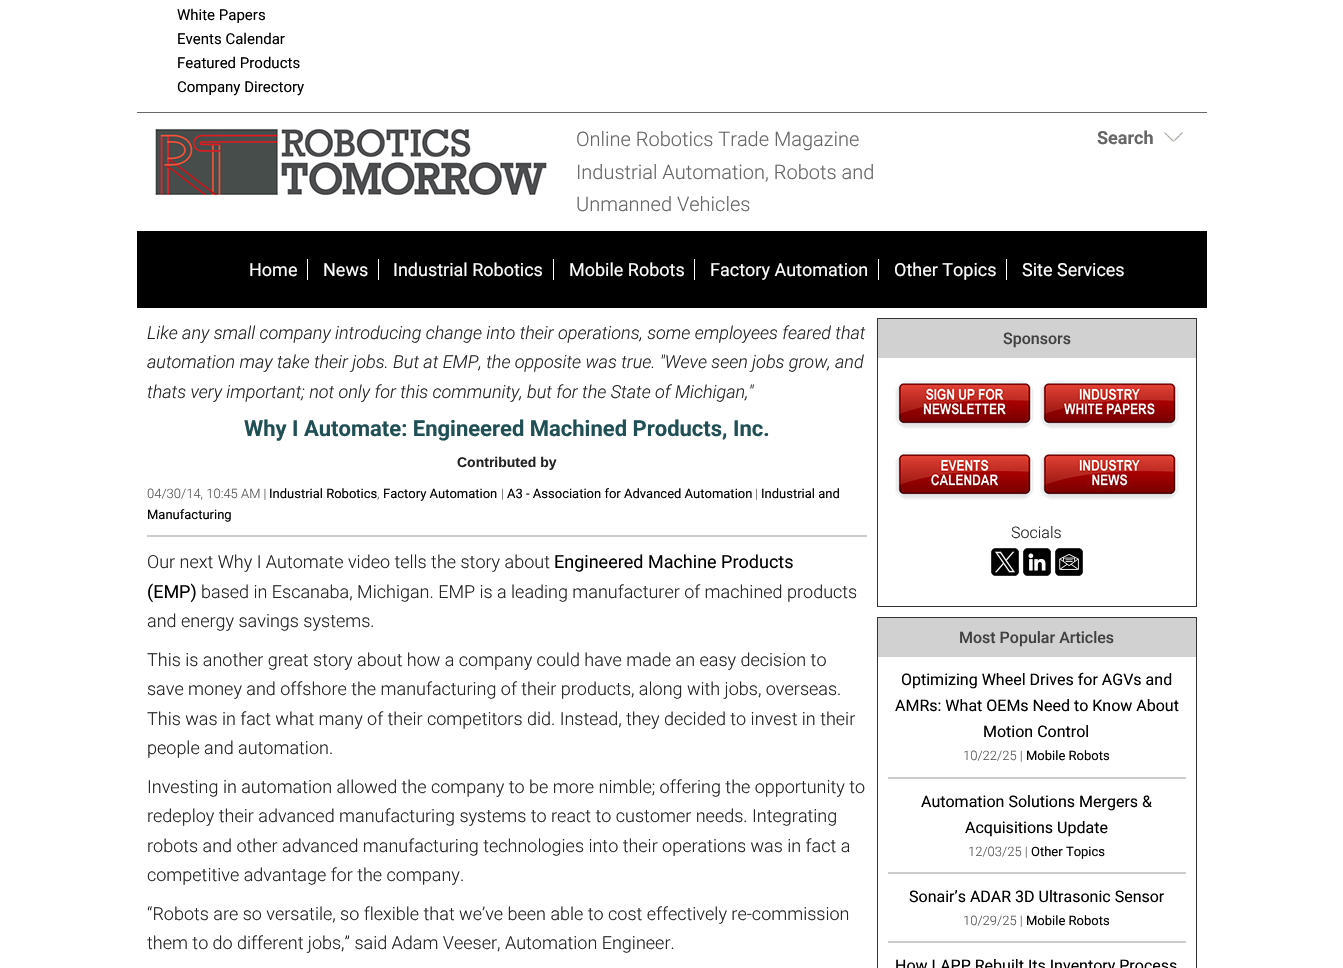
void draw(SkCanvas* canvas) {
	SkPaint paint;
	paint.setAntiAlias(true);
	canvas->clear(0xffffffff);
	SkFont f1(fontMgr->matchFamilyStyle("Roboto", SkFontStyle::Normal()), 15);
	f1.setSubpixel(true);
	paint.setColor(0xff000000);
	canvas->drawString("White Papers", 177, 20, f1, paint);
	canvas->drawString("Events Calendar", 177, 44, f1, paint);
	canvas->drawString("Featured Products", 177, 68, f1, paint);
	canvas->drawString("Company Directory", 177, 92, f1, paint);
	paint.setColor(0xff666666);
	canvas->drawRect(SkRect::MakeXYWH(137, 112, 1070, 1), paint);
	canvas->drawImageRect(SkImages::DeferredFromEncodedData(SkData::MakeFromFileName("img1.png")), SkRect::MakeXYWH(155, 128, 392, 68), SkSamplingOptions());
	SkFont f2(fontMgr->matchFamilyStyle("Roboto", SkFontStyle(300, SkFontStyle::kNormal_Width, SkFontStyle::kUpright_Slant)), 20);
	f2.setSubpixel(true);
	canvas->drawString("Online Robotics Trade Magazine", 576, 146, f2, paint);
	canvas->drawString("Industrial Automation, Robots and", 576, 179, f2, paint);
	canvas->drawString("Unmanned Vehicles", 576, 211, f2, paint);
	canvas->drawImageRect(SkImages::DeferredFromEncodedData(SkData::MakeFromFileName("img2.png")), SkRect::MakeXYWH(1164, 132, 19, 10), SkSamplingOptions());
	SkFont f3(fontMgr->matchFamilyStyle("Roboto", SkFontStyle::Bold()), 18);
	f3.setSubpixel(true);
	canvas->drawString("Search", 1097, 144, f3, paint);
	paint.setColor(0xff000000);
	canvas->drawRect(SkRect::MakeXYWH(137, 231, 1070, 77), paint);
	paint.setColor(0xffffffff);
	canvas->drawRect(SkRect::MakeXYWH(307, 259, 1, 21), paint);
	SkFont f4(fontMgr->matchFamilyStyle("Roboto", SkFontStyle::Normal()), 18);
	f4.setSubpixel(true);
	canvas->drawString("Home", 249, 276, f4, paint);
	canvas->drawRect(SkRect::MakeXYWH(378, 259, 1, 21), paint);
	canvas->drawString("News", 323, 276, f4, paint);
	canvas->drawRect(SkRect::MakeXYWH(553, 259, 1, 21), paint);
	canvas->drawString("Industrial Robotics", 393, 276, f4, paint);
	canvas->drawRect(SkRect::MakeXYWH(694, 259, 1, 21), paint);
	canvas->drawString("Mobile Robots", 569, 276, f4, paint);
	canvas->drawRect(SkRect::MakeXYWH(878, 259, 1, 21), paint);
	canvas->drawString("Factory Automation", 710, 276, f4, paint);
	canvas->drawRect(SkRect::MakeXYWH(1006, 259, 1, 21), paint);
	canvas->drawString("Other Topics", 894, 276, f4, paint);
	canvas->drawString("Site Services", 1022, 276, f4, paint);
	paint.setColor(0xffcccccc);
	canvas->drawRect(SkRect::MakeXYWH(147, 535, 720, 2), paint);
	SkFont f5(fontMgr->matchFamilyStyle("Roboto", SkFontStyle(300, SkFontStyle::kNormal_Width, SkFontStyle::kItalic_Slant)), 18);
	f5.setSubpixel(true);
	paint.setColor(0xff222222);
	canvas->drawString("Like any small company introducing change into their operations, some employees feared that", 147, 339, f5, paint);
	canvas->drawString("automation may take their jobs. But at EMP, the opposite was true. \"Weve seen jobs grow, and", 147, 368, f5, paint);
	canvas->drawString("thats very important; not only for this community, but for the State of Michigan,\"", 147, 398, f5, paint);
	SkFont f6(fontMgr->matchFamilyStyle("Roboto", SkFontStyle::Bold()), 22);
	f6.setSubpixel(true);
	paint.setColor(0xff205055);
	canvas->drawString("Why I Automate: Engineered Machined Products, Inc.", 244, 436, f6, paint);
	SkFont f7(fontMgr->matchFamilyStyle("Liberation Sans", SkFontStyle::Bold()), 14);
	f7.setSubpixel(true);
	paint.setColor(0xff222222);
	canvas->drawString("Contributed by", 457, 467, f7, paint);
	SkFont f8(fontMgr->matchFamilyStyle("Roboto", SkFontStyle(300, SkFontStyle::kNormal_Width, SkFontStyle::kUpright_Slant)), 13);
	f8.setSubpixel(true);
	paint.setColor(0xff555555);
	canvas->drawString("04/30/14, 10:45 AM |", 147, 498, f8, paint);
	SkFont f9(fontMgr->matchFamilyStyle("Roboto", SkFontStyle::Normal()), 13);
	f9.setSubpixel(true);
	paint.setColor(0xff000000);
	canvas->drawString("Industrial Robotics", 269, 498, f9, paint);
	paint.setColor(0xff555555);
	canvas->drawString(",", 377, 498, f8, paint);
	paint.setColor(0xff000000);
	canvas->drawString("Factory Automation", 383, 498, f9, paint);
	paint.setColor(0xff555555);
	canvas->drawString("|", 501, 498, f8, paint);
	paint.setColor(0xff000000);
	canvas->drawString("A3 - Association for Advanced Automation", 507, 498, f9, paint);
	paint.setColor(0xff555555);
	canvas->drawString("|", 755, 498, f8, paint);
	paint.setColor(0xff000000);
	canvas->drawString("Industrial and", 761, 498, f9, paint);
	canvas->drawString("Manufacturing", 147, 519, f9, paint);
	SkFont f10(fontMgr->matchFamilyStyle("Roboto", SkFontStyle(300, SkFontStyle::kNormal_Width, SkFontStyle::kUpright_Slant)), 18);
	f10.setSubpixel(true);
	paint.setColor(0xff222222);
	canvas->drawString("Our next Why I Automate video tells the story about", 147, 568, f10, paint);
	paint.setColor(0xff000000);
	canvas->drawString("Engineered Machine Products", 554, 568, f4, paint);
	canvas->drawString("(EMP)", 147, 598, f4, paint);
	paint.setColor(0xff222222);
	canvas->drawString("based in Escanaba, Michigan. EMP is a leading manufacturer of machined products", 201, 598, f10, paint);
	canvas->drawString("and energy savings systems.", 147, 627, f10, paint);
	canvas->drawString("This is another great story about how a company could have made an easy decision to", 147, 666, f10, paint);
	canvas->drawString("save money and offshore the manufacturing of their products, along with jobs, overseas.", 147, 695, f10, paint);
	canvas->drawString("This was in fact what many of their competitors did. Instead, they decided to invest in their", 147, 725, f10, paint);
	canvas->drawString("people and automation.", 147, 754, f10, paint);
	canvas->drawString("Investing in automation allowed the company to be more nimble; offering the opportunity to", 147, 793, f10, paint);
	canvas->drawString("redeploy their advanced manufacturing systems to react to customer needs. Integrating", 147, 822, f10, paint);
	canvas->drawString("robots and other advanced manufacturing technologies into their operations was in fact a", 147, 852, f10, paint);
	canvas->drawString("competitive advantage for the company.", 147, 881, f10, paint);
	canvas->drawString("“Robots are so versatile, so flexible that we’ve been able to cost effectively re-commission", 147, 920, f10, paint);
	canvas->drawString("them to do different jobs,” said Adam Veeser, Automation Engineer.", 147, 949, f10, paint);
	paint.setStroke(true);
	paint.setStrokeWidth(1);
	paint.setColor(0xff333333);
	canvas->drawRect(SkRect::MakeXYWH(877.5, 318.5, 319, 288), paint);
	paint.setStroke(false);
	paint.setColor(0xffd1d1d1);
	canvas->drawRect(SkRect::MakeXYWH(878, 319, 318, 39), paint);
	SkFont f11(fontMgr->matchFamilyStyle("Roboto", SkFontStyle(500, SkFontStyle::kNormal_Width, SkFontStyle::kUpright_Slant)), 16);
	f11.setSubpixel(true);
	paint.setColor(0xff414141);
	canvas->drawString("Sponsors", 1003, 344, f11, paint);
	canvas->drawImageRect(SkImages::DeferredFromEncodedData(SkData::MakeFromFileName("img3.png")), SkRect::MakeXYWH(893, 378, 143, 51), SkSamplingOptions());
	canvas->drawImageRect(SkImages::DeferredFromEncodedData(SkData::MakeFromFileName("img4.png")), SkRect::MakeXYWH(1038, 378, 143, 51), SkSamplingOptions());
	canvas->drawImageRect(SkImages::DeferredFromEncodedData(SkData::MakeFromFileName("img5.png")), SkRect::MakeXYWH(895, 451, 139, 49), SkSamplingOptions());
	canvas->drawImageRect(SkImages::DeferredFromEncodedData(SkData::MakeFromFileName("img6.png")), SkRect::MakeXYWH(1038, 449, 143, 51), SkSamplingOptions());
	SkFont f12(fontMgr->matchFamilyStyle("Roboto", SkFontStyle(300, SkFontStyle::kNormal_Width, SkFontStyle::kUpright_Slant)), 16);
	f12.setSubpixel(true);
	paint.setColor(0xff222222);
	canvas->drawString("Socials", 1011, 538, f12, paint);
	canvas->drawImageRect(SkImages::DeferredFromEncodedData(SkData::MakeFromFileName("img7.png")), SkRect::MakeXYWH(991, 548, 28, 28), SkSamplingOptions());
	canvas->drawImageRect(SkImages::DeferredFromEncodedData(SkData::MakeFromFileName("img8.png")), SkRect::MakeXYWH(1023, 548, 28, 28), SkSamplingOptions());
	canvas->drawImageRect(SkImages::DeferredFromEncodedData(SkData::MakeFromFileName("img9.png")), SkRect::MakeXYWH(1055, 548, 28, 28), SkSamplingOptions());
	paint.setStroke(true);
	paint.setColor(0xff333333);
	canvas->drawRect(SkRect::MakeXYWH(877.5, 617.5, 319, 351), paint);
	paint.setStroke(false);
	paint.setColor(0xffd1d1d1);
	canvas->drawRect(SkRect::MakeXYWH(878, 618, 318, 39), paint);
	paint.setColor(0xff414141);
	canvas->drawString("Most Popular Articles", 959, 643, f11, paint);
	paint.setColor(0xffcccccc);
	canvas->drawRect(SkRect::MakeXYWH(888, 777, 298, 2), paint);
	SkFont f13(fontMgr->matchFamilyStyle("Roboto", SkFontStyle::Normal()), 16);
	f13.setSubpixel(true);
	paint.setColor(0xff000000);
	canvas->drawString("Optimizing Wheel Drives for AGVs and", 901, 685, f13, paint);
	canvas->drawString("AMRs: What OEMs Need to Know About", 895, 711, f13, paint);
	canvas->drawString("Motion Control", 983, 737, f13, paint);
	paint.setColor(0xff555555);
	canvas->drawString("10/22/25 |", 963, 760, f8, paint);
	paint.setColor(0xff000000);
	canvas->drawString("Mobile Robots", 1026, 760, f9, paint);
	paint.setColor(0xffcccccc);
	canvas->drawRect(SkRect::MakeXYWH(888, 872, 298, 2), paint);
	paint.setColor(0xff000000);
	canvas->drawString("Automation Solutions Mergers &", 921, 807, f13, paint);
	canvas->drawString("Acquisitions Update", 965, 833, f13, paint);
	paint.setColor(0xff555555);
	canvas->drawString("12/03/25 |", 968, 856, f8, paint);
	paint.setColor(0xff000000);
	canvas->drawString("Other Topics", 1031, 856, f9, paint);
	paint.setColor(0xffcccccc);
	canvas->drawRect(SkRect::MakeXYWH(888, 941, 298, 2), paint);
	paint.setColor(0xff000000);
	canvas->drawString("Sonair’s ADAR 3D Ultrasonic Sensor", 909, 902, f13, paint);
	paint.setColor(0xff555555);
	canvas->drawString("10/29/25 |", 963, 925, f8, paint);
	paint.setColor(0xff000000);
	canvas->drawString("Mobile Robots", 1026, 925, f9, paint);
	canvas->drawString("How LAPP Rebuilt Its Inventory Process", 895, 971, f13, paint);
}
